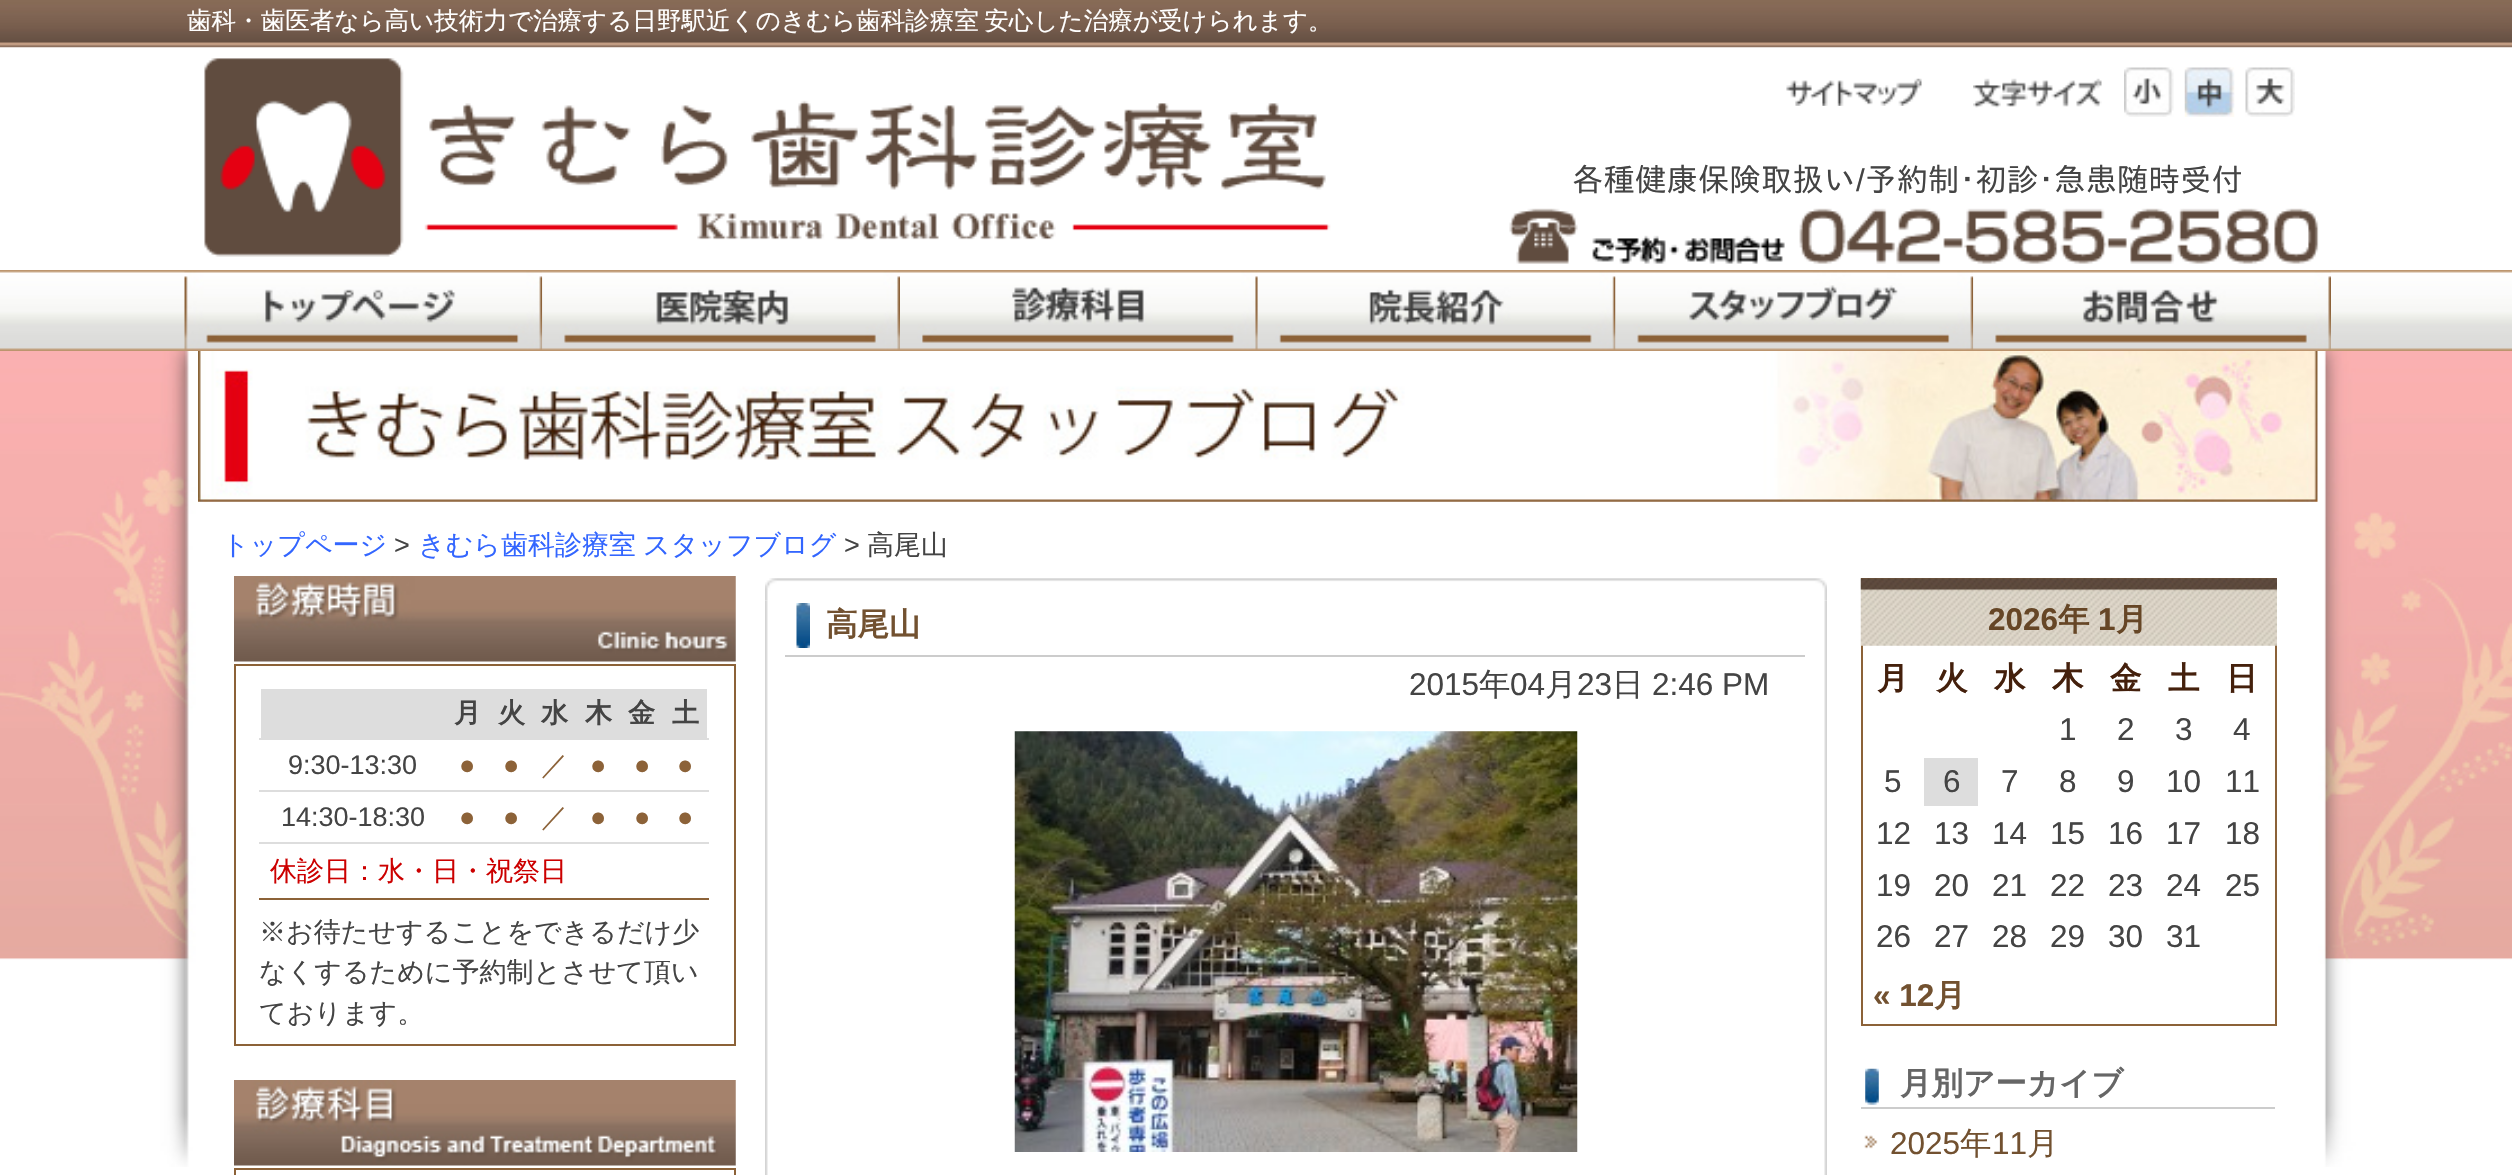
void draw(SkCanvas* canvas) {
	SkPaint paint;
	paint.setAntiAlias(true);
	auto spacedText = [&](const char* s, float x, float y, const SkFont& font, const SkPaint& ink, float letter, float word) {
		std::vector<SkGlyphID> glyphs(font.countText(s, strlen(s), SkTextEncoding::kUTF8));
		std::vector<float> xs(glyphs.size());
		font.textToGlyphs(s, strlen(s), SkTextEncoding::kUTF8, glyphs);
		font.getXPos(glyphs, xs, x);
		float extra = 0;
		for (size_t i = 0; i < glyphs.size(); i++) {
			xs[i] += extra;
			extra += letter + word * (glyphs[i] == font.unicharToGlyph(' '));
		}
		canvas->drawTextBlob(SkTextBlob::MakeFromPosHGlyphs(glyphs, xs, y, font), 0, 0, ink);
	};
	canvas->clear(0xffffffff);
	canvas->drawImageRect(SkImages::DeferredFromEncodedData(SkData::MakeFromFileName("img1.png")), SkRect::MakeXYWH(0, 0, 2512, 48), SkSamplingOptions());
	SkFont f1(fontMgr->matchFamilyStyle("WenQuanYi Zen Hei", SkFontStyle(500, SkFontStyle::kNormal_Width, SkFontStyle::kUpright_Slant)), 24.55);
	f1.setSubpixel(true);
	paint.setColor(0xffffffff);
	spacedText("歯科・歯医者なら高い技術力で治療する日野駅近くのきむら歯科診療室 安心した治療が受けられます。", 187, 29, f1, paint, 0, -2);
	canvas->drawImageRect(SkImages::DeferredFromEncodedData(SkData::MakeFromFileName("img2.png")), SkRect::MakeXYWH(204, 58, 1127, 199), SkSamplingOptions());
	canvas->drawImageRect(SkImages::DeferredFromEncodedData(SkData::MakeFromFileName("img3.png")), SkRect::MakeXYWH(1786, 78, 136, 28), SkSamplingOptions());
	canvas->drawImageRect(SkImages::DeferredFromEncodedData(SkData::MakeFromFileName("img4.png")), SkRect::MakeXYWH(1973, 78, 129, 30), SkSamplingOptions());
	canvas->drawImageRect(SkImages::DeferredFromEncodedData(SkData::MakeFromFileName("img5.png")), SkRect::MakeXYWH(2124, 67, 50, 50), SkSamplingOptions());
	canvas->drawImageRect(SkImages::DeferredFromEncodedData(SkData::MakeFromFileName("img6.png")), SkRect::MakeXYWH(2184, 67, 51, 50), SkSamplingOptions());
	canvas->drawImageRect(SkImages::DeferredFromEncodedData(SkData::MakeFromFileName("img7.png")), SkRect::MakeXYWH(2245, 67, 50, 50), SkSamplingOptions());
	SkFont f2(fontMgr->matchFamilyStyle("IPAGothic", SkFontStyle::Normal()), 31.5);
	f2.setSubpixel(true);
	paint.setColor(0xff444444);
	canvas->drawString("各種健康保険取扱い", 1572, 191, f2, paint);
	SkFont f3(fontMgr->matchFamilyStyle("Liberation Sans", SkFontStyle::Normal()), 31.5);
	f3.setSubpixel(true);
	canvas->drawString("/", 1856, 191, f3, paint);
	canvas->drawString("予約制･初診･急患随時受付", 1865, 191, f2, paint);
	canvas->drawImageRect(SkImages::DeferredFromEncodedData(SkData::MakeFromFileName("img8.png")), SkRect::MakeXYWH(1509, 208, 810, 56), SkSamplingOptions());
	canvas->drawImageRect(SkImages::DeferredFromEncodedData(SkData::MakeFromFileName("img9.png")), SkRect::MakeXYWH(0, 270, 2512, 81), SkSamplingOptions());
	canvas->drawImageRect(SkImages::DeferredFromEncodedData(SkData::MakeFromFileName("img10.png")), SkRect::MakeXYWH(184, 271, 359, 79), SkSamplingOptions());
	canvas->drawImageRect(SkImages::DeferredFromEncodedData(SkData::MakeFromFileName("img11.png")), SkRect::MakeXYWH(542, 271, 358, 79), SkSamplingOptions());
	canvas->drawImageRect(SkImages::DeferredFromEncodedData(SkData::MakeFromFileName("img12.png")), SkRect::MakeXYWH(900, 271, 358, 79), SkSamplingOptions());
	canvas->drawImageRect(SkImages::DeferredFromEncodedData(SkData::MakeFromFileName("img13.png")), SkRect::MakeXYWH(1257, 271, 359, 79), SkSamplingOptions());
	canvas->drawImageRect(SkImages::DeferredFromEncodedData(SkData::MakeFromFileName("img14.png")), SkRect::MakeXYWH(1615, 271, 359, 79), SkSamplingOptions());
	canvas->drawImageRect(SkImages::DeferredFromEncodedData(SkData::MakeFromFileName("img15.png")), SkRect::MakeXYWH(1973, 271, 358, 79), SkSamplingOptions());
	canvas->drawImageRect(SkImages::DeferredFromEncodedData(SkData::MakeFromFileName("img16.png")), SkRect::MakeXYWH(0, 351, 2512, 816), SkSamplingOptions());
	canvas->drawImageRect(SkImages::DeferredFromEncodedData(SkData::MakeFromFileName("img17.png")), SkRect::MakeXYWH(198, 351, 2120, 151), SkSamplingOptions());
	SkFont f4(fontMgr->matchFamilyStyle("WenQuanYi Zen Hei", SkFontStyle(500, SkFontStyle::kNormal_Width, SkFontStyle::kUpright_Slant)), 27);
	f4.setSubpixel(true);
	paint.setColor(0xff3366ff);
	canvas->drawString("トップページ", 222, 554, f4, paint);
	SkFont f5(fontMgr->matchFamilyStyle("Liberation Sans", SkFontStyle::Normal()), 27);
	f5.setSubpixel(true);
	paint.setColor(0xff444444);
	canvas->drawString(">", 394, 554, f5, paint);
	paint.setColor(0xff3366ff);
	spacedText("きむら歯科診療室 スタッフブログ", 418, 554, f4, paint, 0, -1);
	paint.setColor(0xff444444);
	canvas->drawString(">", 844, 554, f5, paint);
	canvas->drawString("高尾山", 867, 554, f4, paint);
	canvas->drawImageRect(SkImages::DeferredFromEncodedData(SkData::MakeFromFileName("img18.png")), SkRect::MakeXYWH(234, 576, 502, 86), SkSamplingOptions());
	paint.setStroke(true);
	paint.setStrokeWidth(2);
	paint.setColor(0xff8c6238);
	canvas->drawRect(SkRect::MakeXYWH(235, 665, 500, 380), paint);
	paint.setStroke(false);
	paint.setColor(0xffdddddd);
	canvas->drawRect(SkRect::MakeXYWH(261, 689, 446, 49), paint);
	canvas->drawRect(SkRect::MakeXYWH(259, 738, 450, 2), paint);
	SkFont f6(fontMgr->matchFamilyStyle("WenQuanYi Zen Hei", SkFontStyle::Bold()), 27);
	f6.setSubpixel(true);
	paint.setColor(0xff444444);
	canvas->drawString("月", 454, 722, f6, paint);
	canvas->drawString("火", 498, 722, f6, paint);
	canvas->drawString("水", 541, 722, f6, paint);
	canvas->drawString("木", 585, 722, f6, paint);
	canvas->drawString("金", 628, 722, f6, paint);
	canvas->drawString("土", 672, 722, f6, paint);
	paint.setColor(0xffdddddd);
	canvas->drawRect(SkRect::MakeXYWH(259, 790, 450, 2), paint);
	paint.setColor(0xff444444);
	canvas->drawString("9:30-13:30", 288, 774, f5, paint);
	paint.setColor(0xff8c6238);
	canvas->drawString("●", 459, 774, f5, paint);
	canvas->drawString("●", 503, 774, f5, paint);
	canvas->drawString("／", 541, 774, f4, paint);
	canvas->drawString("●", 590, 774, f5, paint);
	canvas->drawString("●", 634, 774, f5, paint);
	canvas->drawString("●", 677, 774, f5, paint);
	paint.setColor(0xffdddddd);
	canvas->drawRect(SkRect::MakeXYWH(259, 842, 450, 2), paint);
	paint.setColor(0xff444444);
	canvas->drawString("14:30-18:30", 281, 826, f5, paint);
	paint.setColor(0xff8c6238);
	canvas->drawString("●", 459, 826, f5, paint);
	canvas->drawString("●", 503, 826, f5, paint);
	canvas->drawString("／", 541, 826, f4, paint);
	canvas->drawString("●", 590, 826, f5, paint);
	canvas->drawString("●", 634, 826, f5, paint);
	canvas->drawString("●", 677, 826, f5, paint);
	paint.setColor(0xffcc0000);
	canvas->drawString("休診日：水・日・祝祭日", 270, 880, f4, paint);
	paint.setColor(0xff8c6238);
	canvas->drawRect(SkRect::MakeXYWH(259, 898, 450, 2), paint);
	paint.setColor(0xff444444);
	canvas->drawString("※お待たせすることをできるだけ少", 259, 941, f4, paint);
	canvas->drawString("なくするために予約制とさせて頂い", 259, 981, f4, paint);
	canvas->drawString("ております。", 259, 1022, f4, paint);
	canvas->drawImageRect(SkImages::DeferredFromEncodedData(SkData::MakeFromFileName("img19.png")), SkRect::MakeXYWH(234, 1080, 502, 86), SkSamplingOptions());
	paint.setStroke(true);
	paint.setColor(0xff8c6238);
	canvas->drawRect(SkRect::MakeXYWH(235, 1169, 500, 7), paint);
	canvas->drawImageRect(SkImages::DeferredFromEncodedData(SkData::MakeFromFileName("img20.png")), SkRect::MakeXYWH(765, 578, 1062, 23), SkSamplingOptions());
	canvas->drawImageRect(SkImages::DeferredFromEncodedData(SkData::MakeFromFileName("img21.png")), SkRect::MakeXYWH(765, 601, 1062, 574), SkSamplingOptions());
	canvas->drawImageRect(SkImages::DeferredFromEncodedData(SkData::MakeFromFileName("img22.png")), SkRect::MakeXYWH(796, 603, 14, 45), SkSamplingOptions());
	paint.setStroke(false);
	paint.setColor(0xffcccccc);
	canvas->drawRect(SkRect::MakeXYWH(785, 655, 1020, 2), paint);
	SkFont f7(fontMgr->matchFamilyStyle("WenQuanYi Zen Hei", SkFontStyle::Bold()), 31.5);
	f7.setSubpixel(true);
	paint.setColor(0xff725130);
	canvas->drawString("高尾山", 826, 635, f7, paint);
	paint.setColor(0xff444444);
	canvas->drawString("2015", 1409, 695, f3, paint);
	SkFont f8(fontMgr->matchFamilyStyle("WenQuanYi Zen Hei", SkFontStyle(500, SkFontStyle::kNormal_Width, SkFontStyle::kUpright_Slant)), 31.5);
	f8.setSubpixel(true);
	canvas->drawString("年", 1479, 695, f8, paint);
	canvas->drawString("04", 1510, 695, f3, paint);
	canvas->drawString("月", 1545, 695, f8, paint);
	canvas->drawString("23", 1577, 695, f3, paint);
	canvas->drawString("日", 1612, 695, f8, paint);
	canvas->drawString("2:46 PM", 1652, 695, f3, paint);
	canvas->drawImageRect(SkImages::DeferredFromEncodedData(SkData::MakeFromFileName("img23.png")), SkRect::MakeXYWH(1014, 731, 564, 421), SkSamplingOptions());
	paint.setStroke(true);
	paint.setColor(0xff8c6238);
	canvas->drawRect(SkRect::MakeXYWH(1862, 579, 414, 446), paint);
	canvas->drawImageRect(SkImages::DeferredFromEncodedData(SkData::MakeFromFileName("img24.png")), SkRect::MakeXYWH(1860, 578, 417, 68), SkSamplingOptions());
	SkFont f9(fontMgr->matchFamilyStyle("Liberation Sans", SkFontStyle::Bold()), 31.5);
	f9.setSubpixel(true);
	paint.setStroke(false);
	paint.setColor(0xff664626);
	canvas->drawString("2026", 1988, 630, f9, paint);
	canvas->drawString("年", 2058, 630, f7, paint);
	canvas->drawString("1", 2098, 630, f9, paint);
	canvas->drawString("月", 2116, 630, f7, paint);
	paint.setColor(0xff44200c);
	canvas->drawString("月", 1877, 689, f7, paint);
	canvas->drawString("火", 1936, 689, f7, paint);
	canvas->drawString("水", 1994, 689, f7, paint);
	canvas->drawString("木", 2052, 689, f7, paint);
	canvas->drawString("金", 2110, 689, f7, paint);
	canvas->drawString("土", 2168, 689, f7, paint);
	canvas->drawString("日", 2226, 689, f7, paint);
	paint.setColor(0xff444444);
	canvas->drawString("1", 2059, 740, f3, paint);
	canvas->drawString("2", 2117, 740, f3, paint);
	canvas->drawString("3", 2175, 740, f3, paint);
	canvas->drawString("4", 2233, 740, f3, paint);
	canvas->drawString("5", 1884, 792, f3, paint);
	paint.setColor(0xffdddddd);
	canvas->drawRect(SkRect::MakeXYWH(1924, 758, 54, 48), paint);
	paint.setColor(0xff444444);
	canvas->drawString("6", 1943, 792, f3, paint);
	canvas->drawString("7", 2001, 792, f3, paint);
	canvas->drawString("8", 2059, 792, f3, paint);
	canvas->drawString("9", 2117, 792, f3, paint);
	canvas->drawString("10", 2166, 792, f3, paint);
	canvas->drawString("11", 2225, 792, f3, paint);
	canvas->drawString("12", 1876, 844, f3, paint);
	canvas->drawString("13", 1934, 844, f3, paint);
	canvas->drawString("14", 1992, 844, f3, paint);
	canvas->drawString("15", 2050, 844, f3, paint);
	canvas->drawString("16", 2108, 844, f3, paint);
	canvas->drawString("17", 2166, 844, f3, paint);
	canvas->drawString("18", 2225, 844, f3, paint);
	canvas->drawString("19", 1876, 896, f3, paint);
	canvas->drawString("20", 1934, 896, f3, paint);
	canvas->drawString("21", 1992, 896, f3, paint);
	canvas->drawString("22", 2050, 896, f3, paint);
	canvas->drawString("23", 2108, 896, f3, paint);
	canvas->drawString("24", 2166, 896, f3, paint);
	canvas->drawString("25", 2225, 896, f3, paint);
	canvas->drawString("26", 1876, 947, f3, paint);
	canvas->drawString("27", 1934, 947, f3, paint);
	canvas->drawString("28", 1992, 947, f3, paint);
	canvas->drawString("29", 2050, 947, f3, paint);
	canvas->drawString("30", 2108, 947, f3, paint);
	canvas->drawString("31", 2166, 947, f3, paint);
	paint.setColor(0xff725130);
	canvas->drawString("« 12", 1873, 1006, f9, paint);
	canvas->drawString("月", 1934, 1006, f7, paint);
	canvas->drawImageRect(SkImages::DeferredFromEncodedData(SkData::MakeFromFileName("img25.png")), SkRect::MakeXYWH(1865, 1068, 14, 37), SkSamplingOptions());
	paint.setColor(0xffcccccc);
	canvas->drawRect(SkRect::MakeXYWH(1861, 1107, 414, 2), paint);
	paint.setColor(0xff666666);
	canvas->drawString("月別アーカイブ", 1900, 1094, f7, paint);
	canvas->drawImageRect(SkImages::DeferredFromEncodedData(SkData::MakeFromFileName("img26.png")), SkRect::MakeXYWH(1864, 1135, 14, 14), SkSamplingOptions());
	paint.setColor(0xff725130);
	canvas->drawString("2025", 1890, 1154, f3, paint);
	canvas->drawString("年", 1960, 1154, f8, paint);
	canvas->drawString("11", 1992, 1154, f3, paint);
	canvas->drawString("月", 2027, 1154, f8, paint);
}
